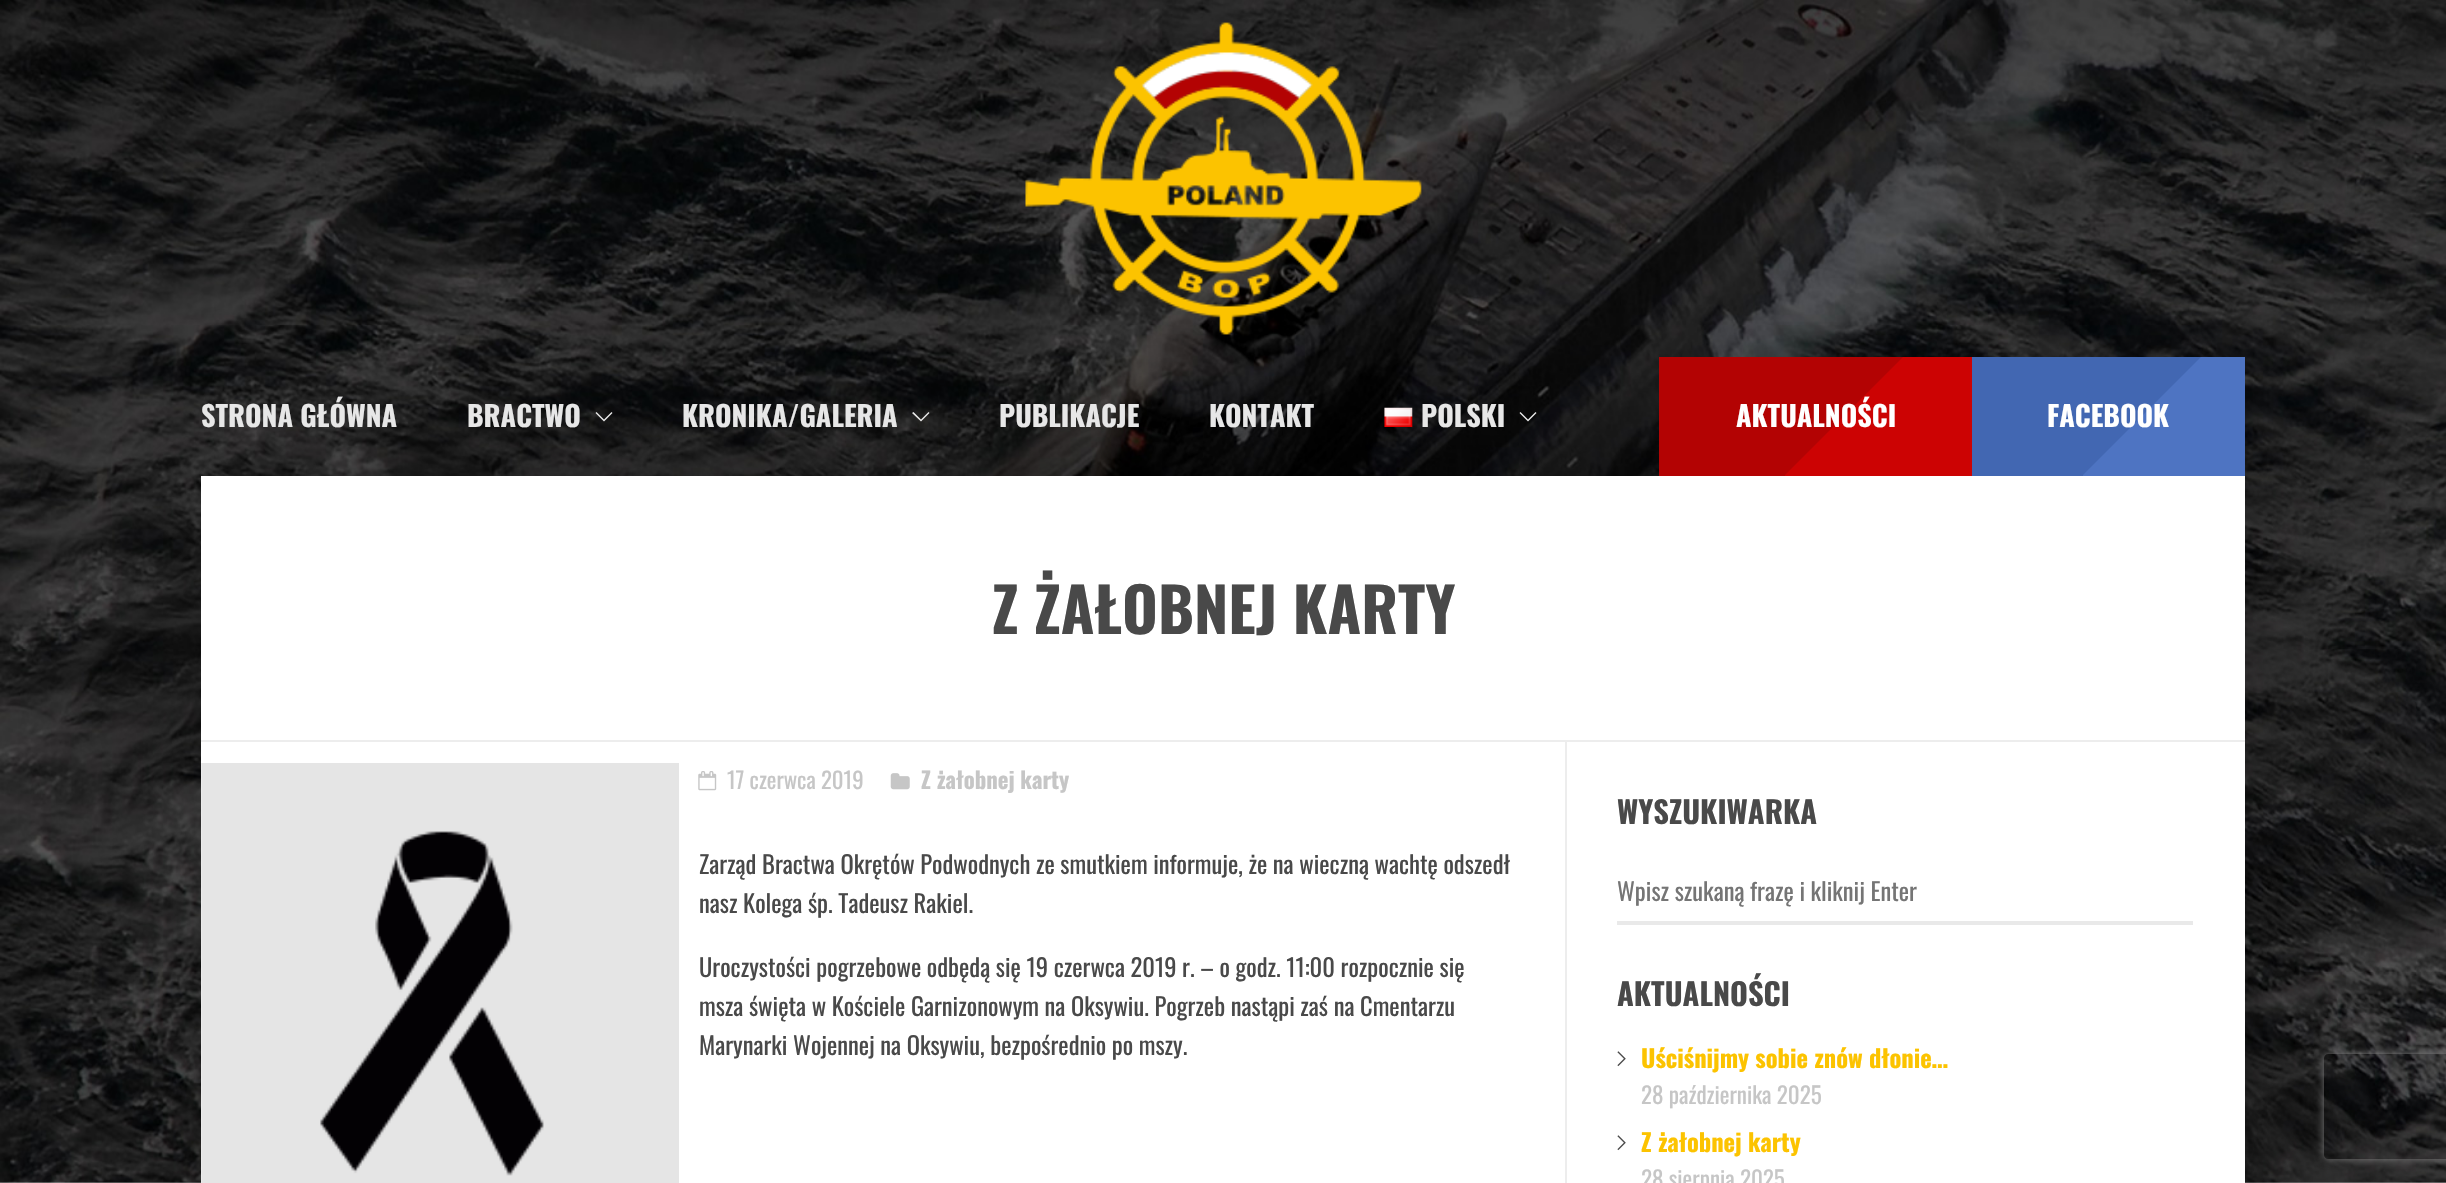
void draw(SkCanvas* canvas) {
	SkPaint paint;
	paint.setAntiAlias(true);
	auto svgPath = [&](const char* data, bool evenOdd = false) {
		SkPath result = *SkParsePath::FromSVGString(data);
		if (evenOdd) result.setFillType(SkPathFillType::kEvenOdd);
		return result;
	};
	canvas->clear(0xffffffff);
	canvas->drawImageRect(SkImages::DeferredFromEncodedData(SkData::MakeFromFileName("img1.png")), SkRect::MakeXYWH(0, 0, 2446, 1183), SkSamplingOptions());
	paint.setColor(0x80000000);
	paint.setMaskFilter(SkMaskFilter::MakeBlur(kNormal_SkBlurStyle, 87.5));
	canvas->drawRect(SkRect::MakeXYWH(201, 476, 2044, 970), paint);
	paint.setMaskFilter(nullptr);
	canvas->drawImageRect(SkImages::DeferredFromEncodedData(SkData::MakeFromFileName("img2.png")), SkRect::MakeXYWH(1025, 22, 397, 313), SkSamplingOptions());
	SkFont f1(fontMgr->matchFamilyStyle("Oswald", SkFontStyle::Bold()), 28.25);
	f1.setSubpixel(true);
	paint.setColor(0xffe7e7e7);
	canvas->drawString("STRONA GŁÓWNA", 201, 427, f1, paint);
	canvas->drawString("BRACTWO", 467, 427, f1, paint);
	canvas->drawPath(svgPath("M596.5 412L604 419.5L611.5 412L612.5 413L604 421.5L595.5 413Z"), paint);
	canvas->drawString("KRONIKA/GALERIA", 682, 427, f1, paint);
	canvas->drawPath(svgPath("M913.5 412L921 419.5L928.5 412L929.5 413L921 421.5L912 413Z"), paint);
	canvas->drawString("PUBLIKACJE", 999, 427, f1, paint);
	canvas->drawString("KONTAKT", 1209, 427, f1, paint);
	canvas->drawImageRect(SkImages::DeferredFromEncodedData(SkData::MakeFromFileName("img3.png")), SkRect::MakeXYWH(1384, 407, 29, 20), SkSamplingOptions());
	canvas->drawString("POLSKI", 1421, 427, f1, paint);
	canvas->drawPath(svgPath("M1520.5 412L1528 419.5L1535.5 412L1536.5 413L1528 421.5L1519.5 413Z"), paint);
	paint.setColor(0xffb30303);
	canvas->drawRect(SkRect::MakeXYWH(1659, 357, 244, 119), paint);
	canvas->save();
	canvas->clipRect(SkRect::MakeXYWH(1785, 357, 187, 119));
	paint.setColor(0xffcc0303);
	canvas->drawPath(svgPath("M1784 476L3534-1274V476Z"), paint);
	canvas->restore();
	paint.setColor(0xffffffff);
	canvas->drawString("AKTUALNOŚCI", 1736, 427, f1, paint);
	paint.setColor(0xff4267b2);
	canvas->drawRect(SkRect::MakeXYWH(1972, 357, 229, 119), paint);
	canvas->save();
	canvas->clipRect(SkRect::MakeXYWH(2083, 357, 162, 119));
	paint.setColor(0xff4e74c2);
	canvas->drawPath(svgPath("M2082 476L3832-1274V476Z"), paint);
	canvas->restore();
	paint.setColor(0xffffffff);
	canvas->drawString("FACEBOOK", 2047, 427, f1, paint);
	canvas->drawRect(SkRect::MakeXYWH(201, 476, 2044, 707), paint);
	paint.setColor(0xffededed);
	canvas->drawRect(SkRect::MakeXYWH(201, 740, 2044, 2), paint);
	SkFont f2(fontMgr->matchFamilyStyle("Oswald", SkFontStyle::Bold()), 61.25);
	f2.setSubpixel(true);
	paint.setColor(0xff494949);
	canvas->drawString("Z ŻAŁOBNEJ KARTY", 992, 634, f2, paint);
	canvas->drawImageRect(SkImages::DeferredFromEncodedData(SkData::MakeFromFileName("img4.png")), SkRect::MakeXYWH(201, 763, 478, 420), SkSamplingOptions());
	canvas->drawImageRect(SkImages::DeferredFromEncodedData(SkData::MakeFromFileName("img5.png")), SkRect::MakeXYWH(698, 771, 19, 20), SkSamplingOptions());
	SkFont f3(fontMgr->matchFamilyStyle("Oswald", SkFontStyle::Normal()), 22.75);
	f3.setSubpixel(true);
	paint.setColor(0xffc6c6c6);
	canvas->drawString("17 czerwca 2019", 727, 789, f3, paint);
	canvas->drawImageRect(SkImages::DeferredFromEncodedData(SkData::MakeFromFileName("img6.png")), SkRect::MakeXYWH(890, 773, 20, 17), SkSamplingOptions());
	SkFont f4(fontMgr->matchFamilyStyle("Oswald", SkFontStyle::Bold()), 22.75);
	f4.setSubpixel(true);
	canvas->drawString("Z żałobnej karty", 921, 789, f4, paint);
	SkFont f5(fontMgr->matchFamilyStyle("Oswald", SkFontStyle::Normal()), 24.5);
	f5.setSubpixel(true);
	paint.setColor(0xff494949);
	canvas->drawString("Zarząd Bractwa Okrętów Podwodnych ze smutkiem informuje, że na wieczną wachtę odszedł", 699, 874, f5, paint);
	canvas->drawString("nasz Kolega śp. Tadeusz Rakiel.", 699, 913, f5, paint);
	canvas->drawString("Uroczystości pogrzebowe odbędą się 19 czerwca 2019 r. – o godz. 11:00 rozpocznie się", 699, 977, f5, paint);
	canvas->drawString("msza święta w Kościele Garnizonowym na Oksywiu. Pogrzeb nastąpi zaś na Cmentarzu", 699, 1016, f5, paint);
	canvas->drawString("Marynarki Wojennej na Oksywiu, bezpośrednio po mszy.", 699, 1055, f5, paint);
	paint.setColor(0xffededed);
	canvas->drawRect(SkRect::MakeXYWH(1565, 742, 2, 441), paint);
	SkFont f6(fontMgr->matchFamilyStyle("Oswald", SkFontStyle::Bold()), 30.5);
	f6.setSubpixel(true);
	paint.setColor(0xff494949);
	canvas->drawString("WYSZUKIWARKA", 1617, 824, f6, paint);
	paint.setColor(0xffe9e9e9);
	canvas->drawRect(SkRect::MakeXYWH(1617, 921, 576, 4), paint);
	paint.setColor(0xff757575);
	canvas->drawString("Wpisz szukaną frazę i kliknij Enter", 1617, 901, f5, paint);
	paint.setColor(0xff494949);
	canvas->drawString("AKTUALNOŚCI", 1617, 1006, f6, paint);
	canvas->drawImageRect(SkImages::DeferredFromEncodedData(SkData::MakeFromFileName("img7.png")), SkRect::MakeXYWH(1617, 1051, 9, 16), SkSamplingOptions());
	SkFont f7(fontMgr->matchFamilyStyle("Oswald", SkFontStyle::Bold()), 24.5);
	f7.setSubpixel(true);
	paint.setColor(0xfffcc300);
	canvas->drawString("Uściśnijmy sobie znów dłonie…", 1641, 1068, f7, paint);
	SkFont f8(fontMgr->matchFamilyStyle("Oswald", SkFontStyle::Normal()), 23);
	f8.setSubpixel(true);
	paint.setColor(0xffc6c6c6);
	canvas->drawString("28 października 2025", 1641, 1104, f8, paint);
	canvas->drawImageRect(SkImages::DeferredFromEncodedData(SkData::MakeFromFileName("img7.png")), SkRect::MakeXYWH(1617, 1135, 9, 16), SkSamplingOptions());
	paint.setColor(0xfffcc300);
	canvas->drawString("Z żałobnej karty", 1641, 1152, f7, paint);
	paint.setColor(0xffc6c6c6);
	canvas->drawString("28 sierpnia 2025", 1641, 1188, f8, paint);
	canvas->save();
	canvas->clipPath(svgPath("M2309 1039H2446V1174H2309ZM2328 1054H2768C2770 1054 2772 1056 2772 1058V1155C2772 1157 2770 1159 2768 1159H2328C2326 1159 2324 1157 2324 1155V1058C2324 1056 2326 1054 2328 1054Z", true), true);
	paint.setColor(0xff808080);
	paint.setMaskFilter(SkMaskFilter::MakeBlur(kNormal_SkBlurStyle, 4.5));
	canvas->drawRoundRect(SkRect::MakeXYWH(2324, 1054, 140, 105), 4, 4, paint);
	paint.setMaskFilter(nullptr);
	canvas->restore();
}
